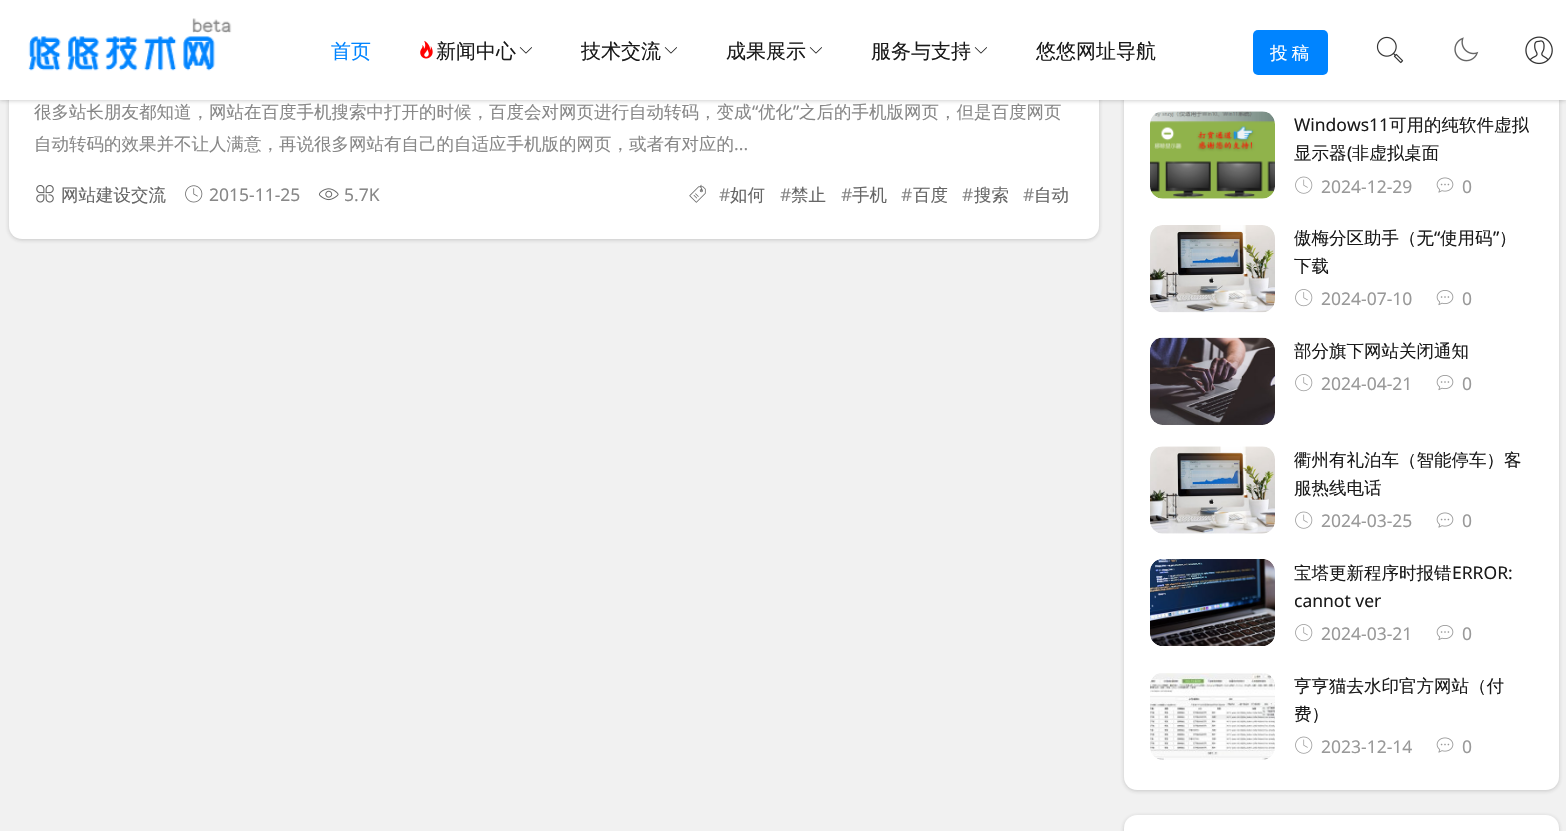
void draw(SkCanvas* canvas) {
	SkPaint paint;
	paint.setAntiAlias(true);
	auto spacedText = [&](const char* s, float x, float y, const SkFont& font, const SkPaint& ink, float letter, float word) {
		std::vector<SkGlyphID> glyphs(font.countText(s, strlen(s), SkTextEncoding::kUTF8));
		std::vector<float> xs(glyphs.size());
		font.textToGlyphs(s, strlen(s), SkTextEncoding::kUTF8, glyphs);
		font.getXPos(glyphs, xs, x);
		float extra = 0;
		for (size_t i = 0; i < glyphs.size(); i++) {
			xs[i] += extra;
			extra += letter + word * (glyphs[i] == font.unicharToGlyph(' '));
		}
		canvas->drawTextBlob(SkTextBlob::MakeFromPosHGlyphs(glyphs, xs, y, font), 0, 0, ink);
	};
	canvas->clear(0xfff1f1f1);
	paint.setColor(0x331a1a1a);
	paint.setMaskFilter(SkMaskFilter::MakeBlur(kNormal_SkBlurStyle, 2));
	canvas->drawRoundRect(SkRect::MakeXYWH(9, 20, 1090, 220), 13, 13, paint);
	paint.setMaskFilter(nullptr);
	paint.setColor(0xffffffff);
	canvas->drawRoundRect(SkRect::MakeXYWH(9, 19, 1090, 220), 13, 13, paint);
	paint.setColor(0x331a1a1a);
	paint.setMaskFilter(SkMaskFilter::MakeBlur(kNormal_SkBlurStyle, 2));
	canvas->drawRoundRect(SkRect::MakeXYWH(1124, 20, 435, 771), 13, 13, paint);
	paint.setMaskFilter(nullptr);
	paint.setColor(0xffffffff);
	canvas->drawRoundRect(SkRect::MakeXYWH(1124, 19, 435, 771), 13, 13, paint);
	paint.setColor(0x331a1a1a);
	paint.setMaskFilter(SkMaskFilter::MakeBlur(kNormal_SkBlurStyle, 2));
	canvas->drawRect(SkRect::MakeXYWH(0, 1, 1566, 100), paint);
	paint.setMaskFilter(nullptr);
	paint.setColor(0xffffffff);
	canvas->drawRect(SkRect::MakeXYWH(0, 0, 1566, 100), paint);
	canvas->drawImageRect(SkImages::DeferredFromEncodedData(SkData::MakeFromFileName("img1.png")), SkRect::MakeXYWH(28, 18, 204, 53), SkSamplingOptions());
	SkFont f1(fontMgr->matchFamilyStyle("WenQuanYi Zen Hei", SkFontStyle(500, SkFontStyle::kNormal_Width, SkFontStyle::kUpright_Slant)), 20);
	f1.setSubpixel(true);
	paint.setColor(0xff0084ff);
	canvas->drawString("首页", 331, 58, f1, paint);
	canvas->drawImageRect(SkImages::DeferredFromEncodedData(SkData::MakeFromFileName("img2.png")), SkRect::MakeXYWH(420, 40, 13, 19), SkSamplingOptions());
	paint.setColor(0xff1a1a1a);
	canvas->drawString("新闻中心", 436, 58, f1, paint);
	canvas->drawImageRect(SkImages::DeferredFromEncodedData(SkData::MakeFromFileName("img3.png")), SkRect::MakeXYWH(519, 47, 13, 7), SkSamplingOptions());
	canvas->drawString("技术交流", 581, 58, f1, paint);
	canvas->drawImageRect(SkImages::DeferredFromEncodedData(SkData::MakeFromFileName("img3.png")), SkRect::MakeXYWH(664, 47, 13, 7), SkSamplingOptions());
	canvas->drawString("成果展示", 726, 58, f1, paint);
	canvas->drawImageRect(SkImages::DeferredFromEncodedData(SkData::MakeFromFileName("img3.png")), SkRect::MakeXYWH(809, 47, 13, 7), SkSamplingOptions());
	canvas->drawString("服务与支持", 871, 58, f1, paint);
	canvas->drawImageRect(SkImages::DeferredFromEncodedData(SkData::MakeFromFileName("img3.png")), SkRect::MakeXYWH(974, 47, 13, 7), SkSamplingOptions());
	canvas->drawString("悠悠网址导航", 1036, 58, f1, paint);
	paint.setColor(0xff0084ff);
	canvas->drawRoundRect(SkRect::MakeXYWH(1253, 30, 75, 45), 5, 5, paint);
	SkFont f2(fontMgr->matchFamilyStyle("WenQuanYi Zen Hei", SkFontStyle(500, SkFontStyle::kNormal_Width, SkFontStyle::kUpright_Slant)), 17.5);
	f2.setSubpixel(true);
	paint.setColor(0xffffffff);
	spacedText("投 稿", 1270, 59, f2, paint, 0, -1);
	canvas->drawImageRect(SkImages::DeferredFromEncodedData(SkData::MakeFromFileName("img4.png")), SkRect::MakeXYWH(1376, 36, 28, 28), SkSamplingOptions());
	canvas->drawImageRect(SkImages::DeferredFromEncodedData(SkData::MakeFromFileName("img5.png")), SkRect::MakeXYWH(1454, 37, 25, 25), SkSamplingOptions());
	canvas->drawImageRect(SkImages::DeferredFromEncodedData(SkData::MakeFromFileName("img6.png")), SkRect::MakeXYWH(1525, 36, 28, 29), SkSamplingOptions());
	paint.setColor(0xff888888);
	canvas->drawString("很多站长朋友都知道，网站在百度手机搜索中打开的时候，百度会对网页进行自动转码，变成", 34, 118, f2, paint);
	SkFont f3(fontMgr->matchFamilyStyle("Noto Sans", SkFontStyle::Normal()), 17.5);
	f3.setSubpixel(true);
	canvas->drawString("“", 752, 118, f3, paint);
	canvas->drawString("优化", 758, 118, f2, paint);
	canvas->drawString("”", 793, 118, f3, paint);
	canvas->drawString("之后的手机版网页，但是百度网页", 799, 118, f2, paint);
	canvas->drawString("自动转码的效果并不让人满意，再说很多网站有自己的自适应手机版的网页，或者有对应的", 34, 150, f2, paint);
	canvas->drawString("...", 734, 150, f3, paint);
	canvas->drawImageRect(SkImages::DeferredFromEncodedData(SkData::MakeFromFileName("img7.png")), SkRect::MakeXYWH(36, 185, 18, 18), SkSamplingOptions());
	paint.setColor(0xff666666);
	canvas->drawString("网站建设交流", 61, 201, f2, paint);
	canvas->drawImageRect(SkImages::DeferredFromEncodedData(SkData::MakeFromFileName("img8.png")), SkRect::MakeXYWH(185, 185, 18, 18), SkSamplingOptions());
	paint.setColor(0xff888888);
	canvas->drawString("2015-11-25", 209, 201, f3, paint);
	canvas->drawImageRect(SkImages::DeferredFromEncodedData(SkData::MakeFromFileName("img9.png")), SkRect::MakeXYWH(318, 188, 21, 13), SkSamplingOptions());
	canvas->drawString("5.7K", 344, 201, f3, paint);
	canvas->drawImageRect(SkImages::DeferredFromEncodedData(SkData::MakeFromFileName("img10.png")), SkRect::MakeXYWH(689, 184, 17, 19), SkSamplingOptions());
	canvas->drawString("#", 719, 201, f3, paint);
	paint.setColor(0xff666666);
	canvas->drawString("如何", 730, 201, f2, paint);
	paint.setColor(0xff888888);
	canvas->drawString("#", 780, 201, f3, paint);
	paint.setColor(0xff666666);
	canvas->drawString("禁止", 791, 201, f2, paint);
	paint.setColor(0xff888888);
	canvas->drawString("#", 841, 201, f3, paint);
	paint.setColor(0xff666666);
	canvas->drawString("手机", 852, 201, f2, paint);
	paint.setColor(0xff888888);
	canvas->drawString("#", 901, 201, f3, paint);
	paint.setColor(0xff666666);
	canvas->drawString("百度", 913, 201, f2, paint);
	paint.setColor(0xff888888);
	canvas->drawString("#", 962, 201, f3, paint);
	paint.setColor(0xff666666);
	canvas->drawString("搜索", 974, 201, f2, paint);
	paint.setColor(0xff888888);
	canvas->drawString("#", 1023, 201, f3, paint);
	paint.setColor(0xff666666);
	canvas->drawString("自动", 1034, 201, f2, paint);
	canvas->drawImageRect(SkImages::DeferredFromEncodedData(SkData::MakeFromFileName("img11.png")), SkRect::MakeXYWH(1150, 111, 125, 88), SkSamplingOptions());
	paint.setColor(0xff1a1a1a);
	canvas->drawString("Windows11", 1294, 131, f3, paint);
	canvas->drawString("可用的纯软件虚拟", 1389, 131, f2, paint);
	canvas->drawString("显示器 非虚拟桌面", 1294, 159, f2, paint);
	canvas->drawString("(", 1347, 159, f3, paint);
	canvas->drawImageRect(SkImages::DeferredFromEncodedData(SkData::MakeFromFileName("img12.png")), SkRect::MakeXYWH(1295, 176, 18, 18), SkSamplingOptions());
	paint.setColor(0xff999999);
	canvas->drawString("2024-12-29", 1321, 193, f3, paint);
	canvas->drawImageRect(SkImages::DeferredFromEncodedData(SkData::MakeFromFileName("img13.png")), SkRect::MakeXYWH(1436, 177, 18, 16), SkSamplingOptions());
	canvas->drawString("0", 1462, 193, f3, paint);
	canvas->drawImageRect(SkImages::DeferredFromEncodedData(SkData::MakeFromFileName("img14.png")), SkRect::MakeXYWH(1150, 225, 125, 88), SkSamplingOptions());
	paint.setColor(0xff1a1a1a);
	canvas->drawString("傲梅分区助手（无", 1294, 244, f2, paint);
	canvas->drawString("“", 1434, 244, f3, paint);
	canvas->drawString("使用码", 1440, 244, f2, paint);
	canvas->drawString("”", 1493, 244, f3, paint);
	canvas->drawString("）", 1499, 244, f2, paint);
	canvas->drawString("下载", 1294, 272, f2, paint);
	canvas->drawImageRect(SkImages::DeferredFromEncodedData(SkData::MakeFromFileName("img15.png")), SkRect::MakeXYWH(1295, 289, 18, 18), SkSamplingOptions());
	paint.setColor(0xff999999);
	canvas->drawString("2024-07-10", 1321, 305, f3, paint);
	canvas->drawImageRect(SkImages::DeferredFromEncodedData(SkData::MakeFromFileName("img16.png")), SkRect::MakeXYWH(1436, 290, 18, 16), SkSamplingOptions());
	canvas->drawString("0", 1462, 305, f3, paint);
	canvas->drawImageRect(SkImages::DeferredFromEncodedData(SkData::MakeFromFileName("img17.png")), SkRect::MakeXYWH(1150, 337, 125, 88), SkSamplingOptions());
	paint.setColor(0xff1a1a1a);
	canvas->drawString("部分旗下网站关闭通知", 1294, 357, f2, paint);
	canvas->drawImageRect(SkImages::DeferredFromEncodedData(SkData::MakeFromFileName("img15.png")), SkRect::MakeXYWH(1295, 374, 18, 18), SkSamplingOptions());
	paint.setColor(0xff999999);
	canvas->drawString("2024-04-21", 1321, 390, f3, paint);
	canvas->drawImageRect(SkImages::DeferredFromEncodedData(SkData::MakeFromFileName("img16.png")), SkRect::MakeXYWH(1436, 375, 18, 16), SkSamplingOptions());
	canvas->drawString("0", 1462, 390, f3, paint);
	canvas->drawImageRect(SkImages::DeferredFromEncodedData(SkData::MakeFromFileName("img18.png")), SkRect::MakeXYWH(1150, 446, 125, 88), SkSamplingOptions());
	paint.setColor(0xff1a1a1a);
	canvas->drawString("衢州有礼泊车（智能停车）客", 1294, 466, f2, paint);
	canvas->drawString("服热线电话", 1294, 494, f2, paint);
	canvas->drawImageRect(SkImages::DeferredFromEncodedData(SkData::MakeFromFileName("img12.png")), SkRect::MakeXYWH(1295, 511, 18, 18), SkSamplingOptions());
	paint.setColor(0xff999999);
	canvas->drawString("2024-03-25", 1321, 527, f3, paint);
	canvas->drawImageRect(SkImages::DeferredFromEncodedData(SkData::MakeFromFileName("img13.png")), SkRect::MakeXYWH(1436, 512, 18, 16), SkSamplingOptions());
	canvas->drawString("0", 1462, 527, f3, paint);
	canvas->drawImageRect(SkImages::DeferredFromEncodedData(SkData::MakeFromFileName("img19.png")), SkRect::MakeXYWH(1150, 559, 125, 87), SkSamplingOptions());
	paint.setColor(0xff1a1a1a);
	canvas->drawString("宝塔更新程序时报错", 1294, 579, f2, paint);
	canvas->drawString("ERROR:", 1452, 579, f3, paint);
	canvas->drawString("cannot ver", 1294, 607, f3, paint);
	canvas->drawImageRect(SkImages::DeferredFromEncodedData(SkData::MakeFromFileName("img15.png")), SkRect::MakeXYWH(1295, 624, 18, 18), SkSamplingOptions());
	paint.setColor(0xff999999);
	canvas->drawString("2024-03-21", 1321, 640, f3, paint);
	canvas->drawImageRect(SkImages::DeferredFromEncodedData(SkData::MakeFromFileName("img16.png")), SkRect::MakeXYWH(1436, 625, 18, 16), SkSamplingOptions());
	canvas->drawString("0", 1462, 640, f3, paint);
	canvas->drawImageRect(SkImages::DeferredFromEncodedData(SkData::MakeFromFileName("img20.png")), SkRect::MakeXYWH(1150, 673, 125, 87), SkSamplingOptions());
	paint.setColor(0xff1a1a1a);
	canvas->drawString("亨亨猫去水印官方网站（付", 1294, 692, f2, paint);
	canvas->drawString("费）", 1294, 720, f2, paint);
	canvas->drawImageRect(SkImages::DeferredFromEncodedData(SkData::MakeFromFileName("img12.png")), SkRect::MakeXYWH(1295, 736, 18, 18), SkSamplingOptions());
	paint.setColor(0xff999999);
	canvas->drawString("2023-12-14", 1321, 753, f3, paint);
	canvas->drawImageRect(SkImages::DeferredFromEncodedData(SkData::MakeFromFileName("img13.png")), SkRect::MakeXYWH(1436, 737, 18, 16), SkSamplingOptions());
	canvas->drawString("0", 1462, 753, f3, paint);
	paint.setColor(0x331a1a1a);
	paint.setMaskFilter(SkMaskFilter::MakeBlur(kNormal_SkBlurStyle, 2));
	canvas->drawRoundRect(SkRect::MakeXYWH(1124, 816, 435, 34), 13, 13, paint);
	paint.setMaskFilter(nullptr);
	paint.setColor(0xffffffff);
	canvas->drawRoundRect(SkRect::MakeXYWH(1124, 815, 435, 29), 13, 13, paint);
}
